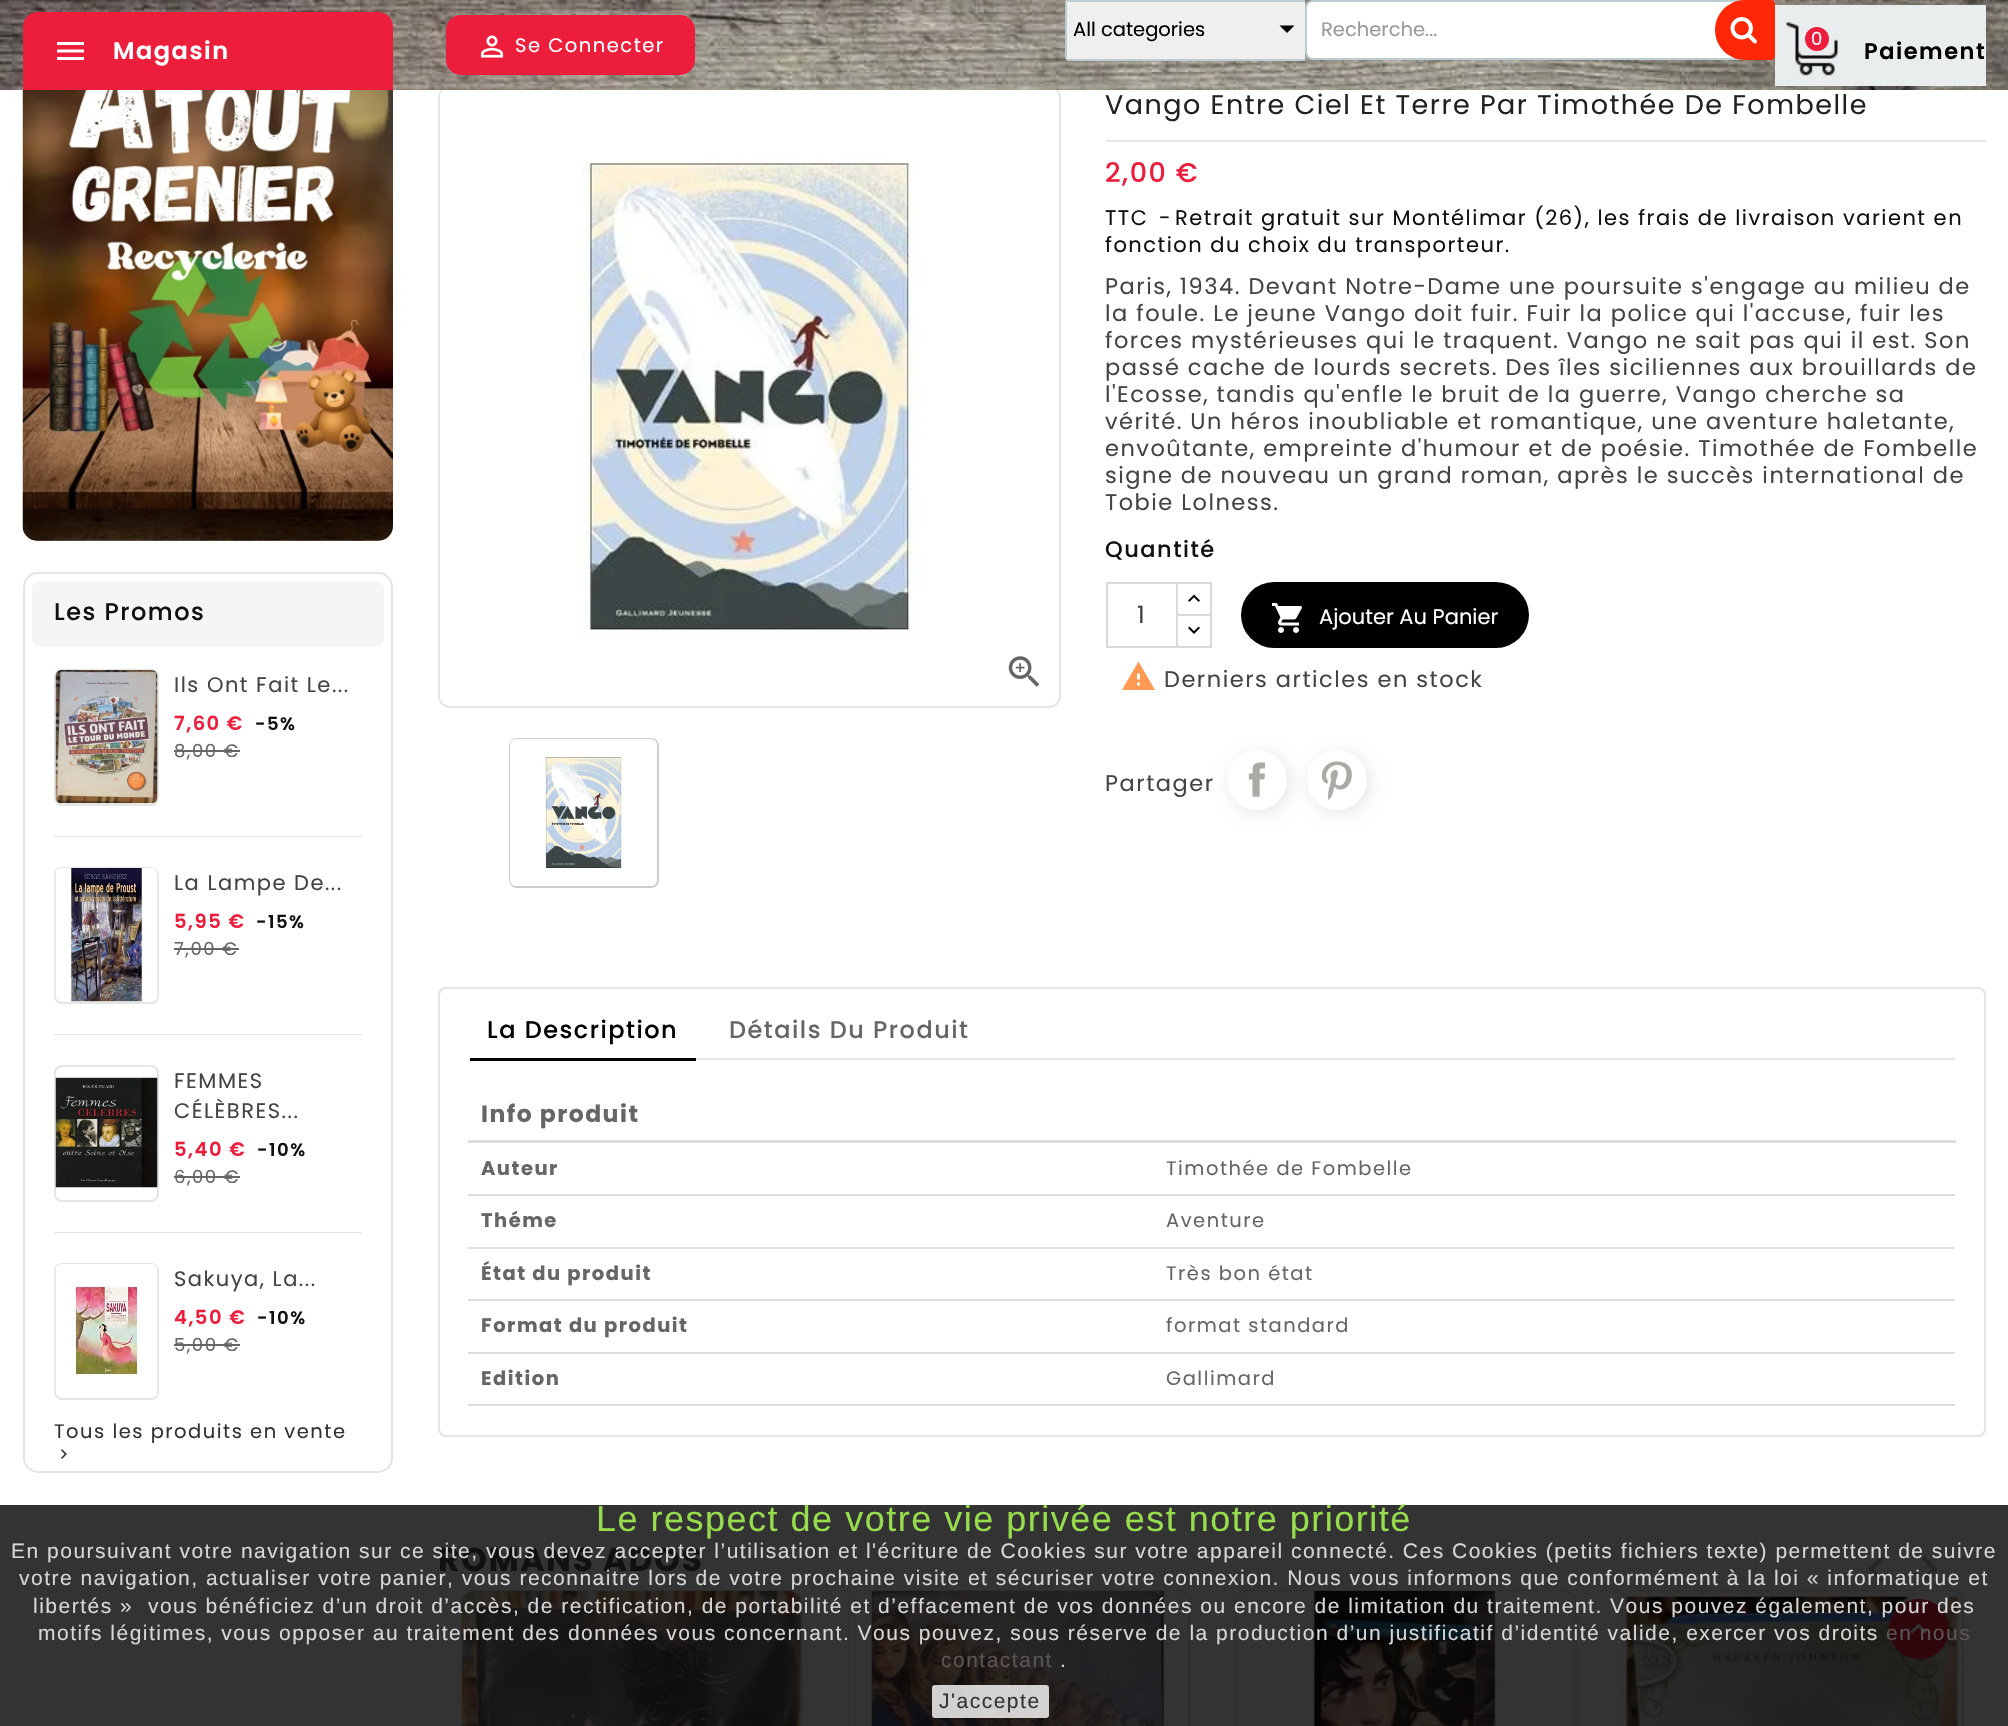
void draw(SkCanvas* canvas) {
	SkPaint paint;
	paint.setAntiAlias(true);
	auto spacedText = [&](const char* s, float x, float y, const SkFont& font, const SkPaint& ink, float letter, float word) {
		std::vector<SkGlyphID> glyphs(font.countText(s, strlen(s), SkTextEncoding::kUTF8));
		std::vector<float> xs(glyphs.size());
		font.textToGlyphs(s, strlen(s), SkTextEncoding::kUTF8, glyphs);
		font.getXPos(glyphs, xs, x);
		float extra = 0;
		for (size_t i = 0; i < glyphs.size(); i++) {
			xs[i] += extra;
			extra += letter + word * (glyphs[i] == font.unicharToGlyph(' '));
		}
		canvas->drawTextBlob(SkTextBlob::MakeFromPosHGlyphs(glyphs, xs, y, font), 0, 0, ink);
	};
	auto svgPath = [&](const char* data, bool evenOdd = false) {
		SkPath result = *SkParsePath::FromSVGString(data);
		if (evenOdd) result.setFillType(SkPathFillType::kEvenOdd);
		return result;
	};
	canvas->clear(0xffffffff);
	paint.setColor(0xff333333);
	canvas->drawRect(SkRect::MakeXYWH(0, 1505, 2008, 221), paint);
	paint.setStroke(true);
	paint.setStrokeWidth(2);
	paint.setColor(0xffe5e5e5);
	canvas->drawRoundRect(SkRect::MakeXYWH(439, 87, 621, 620), 11, 11, paint);
	canvas->drawImageRect(SkImages::DeferredFromEncodedData(SkData::MakeFromFileName("img1.png")), SkRect::MakeXYWH(0, 0, 2008, 90), SkSamplingOptions());
	paint.setStroke(false);
	paint.setColor(0xffed1e3c);
	canvas->drawPath(svgPath("M38 12H378C386.5 12 393 18.5 393 27V90H23V27C23 18.5 29.5 12 38 12Z"), paint);
	canvas->drawImageRect(SkImages::DeferredFromEncodedData(SkData::MakeFromFileName("img2.png")), SkRect::MakeXYWH(57, 42, 27, 18), SkSamplingOptions());
	SkFont f1(fontMgr->matchFamilyStyle("Poppins", SkFontStyle(600, SkFontStyle::kNormal_Width, SkFontStyle::kUpright_Slant)), 24);
	f1.setSubpixel(true);
	paint.setColor(0xffffffff);
	spacedText("Magasin", 113, 59, f1, paint, 1.5, 0);
	paint.setColor(0xffed1e3c);
	canvas->drawRoundRect(SkRect::MakeXYWH(446, 15, 249, 60), 15, 15, paint);
	canvas->drawImageRect(SkImages::DeferredFromEncodedData(SkData::MakeFromFileName("img3.png")), SkRect::MakeXYWH(480, 35, 24, 23), SkSamplingOptions());
	SkFont f2(fontMgr->matchFamilyStyle("Poppins", SkFontStyle::Normal()), 19.5);
	f2.setSubpixel(true);
	paint.setColor(0xffffffff);
	spacedText("Se Connecter", 515, 52, f2, paint, 1.5, 0);
	paint.setColor(0xffefefef);
	canvas->drawPath(svgPath("M1068 0H1305V60H1068C1066.5 60 1065 58.5 1065 57V3C1065 1.5 1066.5 0 1068 0Z"), paint);
	paint.setColor(0xff000000);
	canvas->drawPath(svgPath("M1279.5 25.5L1287 33L1294.5 25.5Z"), paint);
	paint.setColor(0xffbbcdd2);
	canvas->drawRect(SkRect::MakeXYWH(1067, 0, 238, 2), paint);
	canvas->drawRect(SkRect::MakeXYWH(1067, 59, 238, 2), paint);
	canvas->drawRect(SkRect::MakeXYWH(1065, 2, 2, 57), paint);
	paint.setColor(0xff000000);
	canvas->drawString("All categories", 1073, 36, f2, paint);
	paint.setColor(0xffffffff);
	canvas->drawRoundRect(SkRect::MakeXYWH(1306, 1, 468, 58), 7, 7, paint);
	paint.setStroke(true);
	paint.setColor(0xffbbcdd2);
	canvas->drawRoundRect(SkRect::MakeXYWH(1306, 1, 468, 58), 7, 7, paint);
	paint.setStroke(false);
	paint.setColor(0xff999999);
	canvas->drawString("Recherche...", 1321, 36, f2, paint);
	paint.setColor(0xffff2705);
	canvas->drawPath(svgPath("M1745 0H1771C1773 0 1775 2 1775 4V56C1775 58 1773 60 1771 60H1745C1728.5 60 1715 46.5 1715 30C1715 13.5 1728.5 0 1745 0Z"), paint);
	canvas->drawImageRect(SkImages::DeferredFromEncodedData(SkData::MakeFromFileName("img4.png")), SkRect::MakeXYWH(1730, 17, 27, 27), SkSamplingOptions());
	paint.setColor(0xffeaeded);
	canvas->drawRect(SkRect::MakeXYWH(1775, 5, 211, 81), paint);
	canvas->drawImageRect(SkImages::DeferredFromEncodedData(SkData::MakeFromFileName("img5.png")), SkRect::MakeXYWH(1786, 22, 52, 54), SkSamplingOptions());
	paint.setColor(0xffed1e3c);
	canvas->drawCircle(1817, 39, 12, paint);
	SkFont f3(fontMgr->matchFamilyStyle("Poppins", SkFontStyle::Normal()), 18);
	f3.setSubpixel(true);
	paint.setColor(0xffffffff);
	spacedText("0", 1811, 45, f3, paint, 1.5, 0);
	SkFont f4(fontMgr->matchFamilyStyle("Poppins", SkFontStyle(600, SkFontStyle::kNormal_Width, SkFontStyle::kUpright_Slant)), 22.5);
	f4.setSubpixel(true);
	paint.setColor(0xff000000);
	spacedText("Paiement", 1864, 59, f4, paint, 1.5, 0);
	canvas->drawImageRect(SkImages::DeferredFromEncodedData(SkData::MakeFromFileName("img6.png")), SkRect::MakeXYWH(22, 90, 371, 451), SkSamplingOptions());
	paint.setStroke(true);
	paint.setColor(0xffe5e5e5);
	canvas->drawRoundRect(SkRect::MakeXYWH(24, 573, 368, 899), 14, 14, paint);
	paint.setStroke(false);
	paint.setColor(0xfff5f5f5);
	canvas->drawRoundRect(SkRect::MakeXYWH(32, 581, 352, 66), 8, 8, paint);
	SkFont f5(fontMgr->matchFamilyStyle("Poppins", SkFontStyle(500, SkFontStyle::kNormal_Width, SkFontStyle::kUpright_Slant)), 24);
	f5.setSubpixel(true);
	paint.setColor(0xff111111);
	spacedText("Les Promos", 54, 620, f5, paint, 1.5, 0);
	paint.setColor(0xffe5e5e5);
	canvas->drawRect(SkRect::MakeXYWH(54, 836, 308, 1), paint);
	paint.setStroke(true);
	canvas->drawRoundRect(SkRect::MakeXYWH(55, 670, 103, 135), 7, 7, paint);
	canvas->drawImageRect(SkImages::DeferredFromEncodedData(SkData::MakeFromFileName("img7.png")), SkRect::MakeXYWH(55, 670, 103, 134), SkSamplingOptions());
	SkFont f6(fontMgr->matchFamilyStyle("Poppins", SkFontStyle::Normal()), 21);
	f6.setSubpixel(true);
	paint.setStroke(false);
	paint.setColor(0xff444444);
	spacedText("Ils Ont Fait Le...", 174, 692, f6, paint, 1.5, 0);
	SkFont f7(fontMgr->matchFamilyStyle("Poppins", SkFontStyle(600, SkFontStyle::kNormal_Width, SkFontStyle::kUpright_Slant)), 19.5);
	f7.setSubpixel(true);
	paint.setColor(0xffed1e3c);
	spacedText("7,60 €", 174, 730, f7, paint, 1.5, 0);
	SkFont f8(fontMgr->matchFamilyStyle("Poppins", SkFontStyle(600, SkFontStyle::kNormal_Width, SkFontStyle::kUpright_Slant)), 18);
	f8.setSubpixel(true);
	paint.setColor(0xff111111);
	spacedText("-5%", 255, 730, f8, paint, 1.5, 0);
	paint.setColor(0xff666666);
	spacedText("8,00 €", 174, 757, f3, paint, 1.5, 0);
	canvas->drawRect(SkRect::MakeXYWH(174, 750, 66, 2), paint);
	paint.setColor(0xffe5e5e5);
	canvas->drawRect(SkRect::MakeXYWH(54, 1034, 308, 1), paint);
	paint.setStroke(true);
	canvas->drawRoundRect(SkRect::MakeXYWH(55, 868, 103, 135), 7, 7, paint);
	canvas->drawImageRect(SkImages::DeferredFromEncodedData(SkData::MakeFromFileName("img8.png")), SkRect::MakeXYWH(55, 868, 103, 134), SkSamplingOptions());
	paint.setStroke(false);
	paint.setColor(0xff444444);
	spacedText("La Lampe De...", 174, 890, f6, paint, 1.5, 0);
	paint.setColor(0xffed1e3c);
	spacedText("5,95 €", 174, 928, f7, paint, 1.5, 0);
	paint.setColor(0xff111111);
	spacedText("-15%", 256, 928, f8, paint, 1.5, 0);
	paint.setColor(0xff666666);
	spacedText("7,00 €", 174, 955, f3, paint, 1.5, 0);
	canvas->drawRect(SkRect::MakeXYWH(174, 948, 65, 2), paint);
	paint.setColor(0xffe5e5e5);
	canvas->drawRect(SkRect::MakeXYWH(54, 1232, 308, 1), paint);
	paint.setStroke(true);
	canvas->drawRoundRect(SkRect::MakeXYWH(55, 1066, 103, 135), 7, 7, paint);
	canvas->drawImageRect(SkImages::DeferredFromEncodedData(SkData::MakeFromFileName("img9.png")), SkRect::MakeXYWH(55, 1077, 103, 111), SkSamplingOptions());
	paint.setStroke(false);
	paint.setColor(0xff444444);
	spacedText("FEMMES", 174, 1088, f6, paint, 1.5, 0);
	spacedText("CÉLÈBRES...", 174, 1118, f6, paint, 1.5, 0);
	paint.setColor(0xffed1e3c);
	spacedText("5,40 €", 174, 1156, f7, paint, 1.5, 0);
	paint.setColor(0xff111111);
	spacedText("-10%", 257, 1156, f8, paint, 1.5, 0);
	paint.setColor(0xff666666);
	spacedText("6,00 €", 174, 1183, f3, paint, 1.5, 0);
	canvas->drawRect(SkRect::MakeXYWH(174, 1176, 66, 2), paint);
	paint.setStroke(true);
	paint.setColor(0xffe5e5e5);
	canvas->drawRoundRect(SkRect::MakeXYWH(55, 1264, 103, 135), 7, 7, paint);
	canvas->drawImageRect(SkImages::DeferredFromEncodedData(SkData::MakeFromFileName("img10.png")), SkRect::MakeXYWH(55, 1264, 103, 132), SkSamplingOptions());
	paint.setStroke(false);
	paint.setColor(0xff444444);
	spacedText("Sakuya, La...", 174, 1286, f6, paint, 1.5, 0);
	paint.setColor(0xffed1e3c);
	spacedText("4,50 €", 174, 1324, f7, paint, 1.5, 0);
	paint.setColor(0xff111111);
	spacedText("-10%", 257, 1324, f8, paint, 1.5, 0);
	paint.setColor(0xff666666);
	spacedText("5,00 €", 174, 1351, f3, paint, 1.5, 0);
	canvas->drawRect(SkRect::MakeXYWH(174, 1344, 66, 2), paint);
	paint.setColor(0xff333333);
	spacedText("Tous les produits en vente", 54, 1438, f2, paint, 1.5, 0);
	canvas->drawImageRect(SkImages::DeferredFromEncodedData(SkData::MakeFromFileName("img11.png")), SkRect::MakeXYWH(61, 1449, 6, 10), SkSamplingOptions());
	canvas->drawImageRect(SkImages::DeferredFromEncodedData(SkData::MakeFromFileName("img12.png")), SkRect::MakeXYWH(440, 90, 619, 609), SkSamplingOptions());
	canvas->drawImageRect(SkImages::DeferredFromEncodedData(SkData::MakeFromFileName("img13.png")), SkRect::MakeXYWH(1008, 656, 32, 31), SkSamplingOptions());
	paint.setStroke(true);
	paint.setColor(0xffcccccc);
	canvas->drawRoundRect(SkRect::MakeXYWH(510, 739, 148, 148), 7, 7, paint);
	canvas->drawImageRect(SkImages::DeferredFromEncodedData(SkData::MakeFromFileName("img14.png")), SkRect::MakeXYWH(510, 739, 147, 147), SkSamplingOptions());
	paint.setStroke(false);
	paint.setColor(0xffe5e5e5);
	canvas->drawRect(SkRect::MakeXYWH(1106, 140, 880, 2), paint);
	SkFont f9(fontMgr->matchFamilyStyle("Poppins", SkFontStyle::Normal()), 27);
	f9.setSubpixel(true);
	paint.setColor(0xff222222);
	spacedText("Vango Entre Ciel Et Terre Par Timothée De Fombelle", 1105, 114, f9, paint, 1.5, 0);
	SkFont f10(fontMgr->matchFamilyStyle("Poppins", SkFontStyle(500, SkFontStyle::kNormal_Width, SkFontStyle::kUpright_Slant)), 27);
	f10.setSubpixel(true);
	paint.setColor(0xffed1e3c);
	spacedText("2,00 €", 1105, 182, f10, paint, 1.5, 0);
	paint.setColor(0xff111111);
	spacedText("TTC", 1105, 225, f6, paint, 1.5, 0);
	spacedText("-", 1159, 225, f6, paint, 1.5, 0);
	spacedText("Retrait gratuit sur Montélimar (26), les frais de livraison varient en", 1175, 225, f6, paint, 1.5, 0);
	spacedText("fonction du choix du transporteur.", 1105, 252, f6, paint, 1.5, 0);
	SkFont f11(fontMgr->matchFamilyStyle("Poppins", SkFontStyle::Normal()), 22.5);
	f11.setSubpixel(true);
	paint.setColor(0xff444444);
	spacedText("Paris, 1934. Devant Notre-Dame une poursuite s'engage au milieu de", 1105, 294, f11, paint, 1.5, 0);
	spacedText("la foule. Le jeune Vango doit fuir. Fuir la police qui l'accuse, fuir les", 1105, 321, f11, paint, 1.5, 0);
	spacedText("forces mystérieuses qui le traquent. Vango ne sait pas qui il est. Son", 1105, 348, f11, paint, 1.5, 0);
	spacedText("passé cache de lourds secrets. Des îles siciliennes aux brouillards de", 1105, 375, f11, paint, 1.5, 0);
	spacedText("l'Ecosse, tandis qu'enfle le bruit de la guerre, Vango cherche sa", 1105, 402, f11, paint, 1.5, 0);
	spacedText("vérité. Un héros inoubliable et romantique, une aventure haletante,", 1105, 429, f11, paint, 1.5, 0);
	spacedText("envoûtante, empreinte d'humour et de poésie. Timothée de Fombelle", 1105, 456, f11, paint, 1.5, 0);
	spacedText("signe de nouveau un grand roman, après le succès international de", 1105, 483, f11, paint, 1.5, 0);
	spacedText("Tobie Lolness.", 1105, 510, f11, paint, 1.5, 0);
	SkFont f12(fontMgr->matchFamilyStyle("Poppins", SkFontStyle(500, SkFontStyle::kNormal_Width, SkFontStyle::kUpright_Slant)), 22.5);
	f12.setSubpixel(true);
	paint.setColor(0xff111111);
	spacedText("Quantité", 1105, 557, f12, paint, 1.5, 0);
	paint.setStroke(true);
	paint.setColor(0xffd9d9d9);
	canvas->drawRect(SkRect::MakeXYWH(1107, 583, 70, 64), paint);
	SkFont f13(fontMgr->matchFamilyStyle("Poppins", SkFontStyle::Normal()), 24);
	f13.setSubpixel(true);
	paint.setStroke(false);
	paint.setColor(0xff444444);
	canvas->drawString("1", 1137, 623, f13, paint);
	paint.setStroke(true);
	paint.setColor(0xffd9d9d9);
	canvas->drawRect(SkRect::MakeXYWH(1177, 583, 34, 33), paint);
	canvas->drawImageRect(SkImages::DeferredFromEncodedData(SkData::MakeFromFileName("img15.png")), SkRect::MakeXYWH(1188, 594, 12, 8), SkSamplingOptions());
	paint.setStroke(false);
	paint.setColor(0xffffffff);
	canvas->drawRect(SkRect::MakeXYWH(1178, 616, 32, 1), paint);
	paint.setStroke(true);
	paint.setColor(0xffd9d9d9);
	canvas->drawRect(SkRect::MakeXYWH(1177, 615, 34, 32), paint);
	canvas->drawImageRect(SkImages::DeferredFromEncodedData(SkData::MakeFromFileName("img16.png")), SkRect::MakeXYWH(1188, 626, 12, 8), SkSamplingOptions());
	paint.setStroke(false);
	paint.setColor(0xff000000);
	canvas->drawRoundRect(SkRect::MakeXYWH(1241, 582, 288, 66), 33, 33, paint);
	canvas->drawImageRect(SkImages::DeferredFromEncodedData(SkData::MakeFromFileName("img17.png")), SkRect::MakeXYWH(1271, 603, 31, 30), SkSamplingOptions());
	paint.setColor(0xffffffff);
	canvas->drawString("Ajouter Au Panier", 1319, 624, f6, paint);
	paint.setColor(0xffff9a52);
	canvas->drawPath(svgPath("M1140 679.5V673.5H1137V679.5ZM1140 685.5V682.5H1137V685.5ZM1122 690L1138.5 661.5L1155 690Z"), paint);
	paint.setColor(0xff444444);
	spacedText("Derniers articles en stock", 1164, 687, f11, paint, 1.5, 0);
	spacedText("Partager", 1105, 791, f11, paint, 1.5, 0);
	paint.setColor(0x1a000000);
	paint.setMaskFilter(SkMaskFilter::MakeBlur(kNormal_SkBlurStyle, 8));
	canvas->drawRoundRect(SkRect::MakeXYWH(1230, 753, 60, 60), 30, 30, paint);
	paint.setMaskFilter(nullptr);
	paint.setColor(0xffffffff);
	canvas->drawCircle(1257, 780, 30, paint);
	canvas->drawImageRect(SkImages::DeferredFromEncodedData(SkData::MakeFromFileName("img18.png")), SkRect::MakeXYWH(1248, 762, 17, 35), SkSamplingOptions());
	paint.setColor(0x1a000000);
	paint.setMaskFilter(SkMaskFilter::MakeBlur(kNormal_SkBlurStyle, 8));
	canvas->drawRoundRect(SkRect::MakeXYWH(1310, 753, 60, 60), 30, 30, paint);
	paint.setMaskFilter(nullptr);
	paint.setColor(0xffffffff);
	canvas->drawCircle(1337, 780, 30, paint);
	canvas->drawImageRect(SkImages::DeferredFromEncodedData(SkData::MakeFromFileName("img19.png")), SkRect::MakeXYWH(1321, 761, 31, 39), SkSamplingOptions());
	paint.setStroke(true);
	paint.setColor(0xffe5e5e5);
	canvas->drawRoundRect(SkRect::MakeXYWH(439, 988, 1546, 448), 7, 7, paint);
	paint.setStroke(false);
	canvas->drawRect(SkRect::MakeXYWH(696, 1058, 1259, 2), paint);
	paint.setColor(0xff000000);
	canvas->drawRect(SkRect::MakeXYWH(470, 1058, 226, 3), paint);
	spacedText("La Description", 487, 1038, f5, paint, 1.5, 0);
	paint.setColor(0xff666666);
	spacedText("Détails Du Produit", 729, 1038, f5, paint, 1.5, 0);
	paint.setColor(0xffdddddd);
	canvas->drawRect(SkRect::MakeXYWH(468, 1140, 1488, 3), paint);
	SkFont f14(fontMgr->matchFamilyStyle("Poppins", SkFontStyle::Bold()), 23.5);
	f14.setSubpixel(true);
	paint.setColor(0xff666666);
	spacedText("Info produit", 481, 1122, f14, paint, 1.5, 0);
	SkFont f15(fontMgr->matchFamilyStyle("Poppins", SkFontStyle::Bold()), 19.5);
	f15.setSubpixel(true);
	spacedText("Auteur", 481, 1175, f15, paint, 1.5, 0);
	paint.setColor(0xffdddddd);
	canvas->drawRect(SkRect::MakeXYWH(468, 1194, 1487, 2), paint);
	paint.setColor(0xff666666);
	spacedText("Timothée de Fombelle", 1166, 1175, f2, paint, 1.5, 0);
	spacedText("Théme", 481, 1227, f15, paint, 1.5, 0);
	paint.setColor(0xffdddddd);
	canvas->drawRect(SkRect::MakeXYWH(468, 1247, 1487, 2), paint);
	paint.setColor(0xff666666);
	spacedText("Aventure", 1166, 1227, f2, paint, 1.5, 0);
	spacedText("État du produit", 481, 1280, f15, paint, 1.5, 0);
	paint.setColor(0xffdddddd);
	canvas->drawRect(SkRect::MakeXYWH(468, 1299, 1487, 2), paint);
	paint.setColor(0xff666666);
	spacedText("Très bon état", 1166, 1280, f2, paint, 1.5, 0);
	spacedText("Format du produit", 481, 1332, f15, paint, 1.5, 0);
	paint.setColor(0xffdddddd);
	canvas->drawRect(SkRect::MakeXYWH(468, 1352, 1487, 2), paint);
	paint.setColor(0xff666666);
	spacedText("format standard", 1166, 1332, f2, paint, 1.5, 0);
	spacedText("Edition", 481, 1385, f15, paint, 1.5, 0);
	paint.setColor(0xffdddddd);
	canvas->drawRect(SkRect::MakeXYWH(468, 1404, 1487, 2), paint);
	paint.setColor(0xff666666);
	spacedText("Gallimard", 1166, 1385, f2, paint, 1.5, 0);
	SkFont f16(fontMgr->matchFamilyStyle("Poppins", SkFontStyle::Bold()), 33);
	f16.setSubpixel(true);
	paint.setColor(0xff111111);
	spacedText("ROMANS ADOS", 438, 1571, f16, paint, 1.5, 0);
	paint.setColor(0xff262626);
	canvas->drawPath(svgPath("M1884 1558.5L1874 1569L1884 1579.5L1881 1582.5L1867.5 1569L1881 1555.5Z"), paint);
	canvas->drawPath(svgPath("M1924.5 1555.5L1938 1569L1924.5 1582.5L1921.5 1579.5L1931.5 1569L1921.5 1558.5Z"), paint);
	paint.setStroke(true);
	paint.setColor(0xff2e2e2e);
	canvas->drawRoundRect(SkRect::MakeXYWH(462, 1591, 340, 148), 11, 11, paint);
	canvas->drawImageRect(SkImages::DeferredFromEncodedData(SkData::MakeFromFileName("img20.png")), SkRect::MakeXYWH(462, 1591, 339, 135), SkSamplingOptions());
	canvas->drawRoundRect(SkRect::MakeXYWH(849, 1591, 340, 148), 11, 11, paint);
	canvas->drawImageRect(SkImages::DeferredFromEncodedData(SkData::MakeFromFileName("img21.png")), SkRect::MakeXYWH(848, 1591, 337, 135), SkSamplingOptions());
	canvas->drawRoundRect(SkRect::MakeXYWH(1236, 1591, 340, 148), 11, 11, paint);
	canvas->drawImageRect(SkImages::DeferredFromEncodedData(SkData::MakeFromFileName("img22.png")), SkRect::MakeXYWH(1236, 1591, 333, 135), SkSamplingOptions());
	canvas->drawRoundRect(SkRect::MakeXYWH(1623, 1591, 340, 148), 11, 11, paint);
	canvas->drawImageRect(SkImages::DeferredFromEncodedData(SkData::MakeFromFileName("img23.png")), SkRect::MakeXYWH(1623, 1591, 339, 135), SkSamplingOptions());
	paint.setStroke(false);
	paint.setColor(0xff2f060c);
	canvas->drawCircle(1919, 1629, 28.5, paint);
	paint.setStroke(true);
	paint.setStrokeWidth(3);
	canvas->drawCircle(1919, 1629, 28.5, paint);
	canvas->drawImageRect(SkImages::DeferredFromEncodedData(SkData::MakeFromFileName("img24.png")), SkRect::MakeXYWH(1910, 1623, 17, 11), SkSamplingOptions());
	SkFont f17(fontMgr->matchFamilyStyle("Liberation Sans", SkFontStyle::Normal()), 36);
	f17.setSubpixel(true);
	paint.setStroke(false);
	paint.setColor(0xff96dc4d);
	spacedText("Le respect de votre vie privée est notre priorité", 596, 1531, f17, paint, 1.5, 0);
	SkFont f18(fontMgr->matchFamilyStyle("Liberation Sans", SkFontStyle::Normal()), 21);
	f18.setSubpixel(true);
	paint.setColor(0xffd6d6d6);
	spacedText("En poursuivant votre navigation sur ce site, vous devez accepter l’utilisation et l'écriture de Cookies sur votre appareil connecté. Ces Cookies (petits fichiers texte) permettent de suivre", 11, 1558, f18, paint, 1.5, 0);
	spacedText("votre navigation, actualiser votre panier, vous reconnaitre lors de votre prochaine visite et sécuriser votre connexion. Nous vous informons que conformément à la loi « informatique et", 19, 1585, f18, paint, 1.5, 0);
	spacedText("libertés »  vous bénéficiez d’un droit d’accès, de rectification, de portabilité et d’effacement de vos données ou encore de limitation du traitement. Vous pouvez également, pour des", 33, 1613, f18, paint, 1.5, 0);
	spacedText("motifs légitimes, vous opposer au traitement des données vous concernant. Vous pouvez, sous réserve de la production d’un justificatif d’identité valide, exercer vos droits", 38, 1640, f18, paint, 1.5, 0);
	paint.setColor(0xff5b5556);
	spacedText("en nous", 1886, 1640, f18, paint, 1.5, 0);
	spacedText("contactant", 941, 1667, f18, paint, 1.5, 0);
	paint.setColor(0xffd6d6d6);
	spacedText(".", 1060, 1667, f18, paint, 1.5, 0);
	paint.setColor(0xccffffff);
	canvas->drawRoundRect(SkRect::MakeXYWH(932, 1685, 117, 33), 3, 3, paint);
	paint.setColor(0xff333333);
	spacedText("J'accepte", 939, 1708, f18, paint, 1.5, 0);
}
